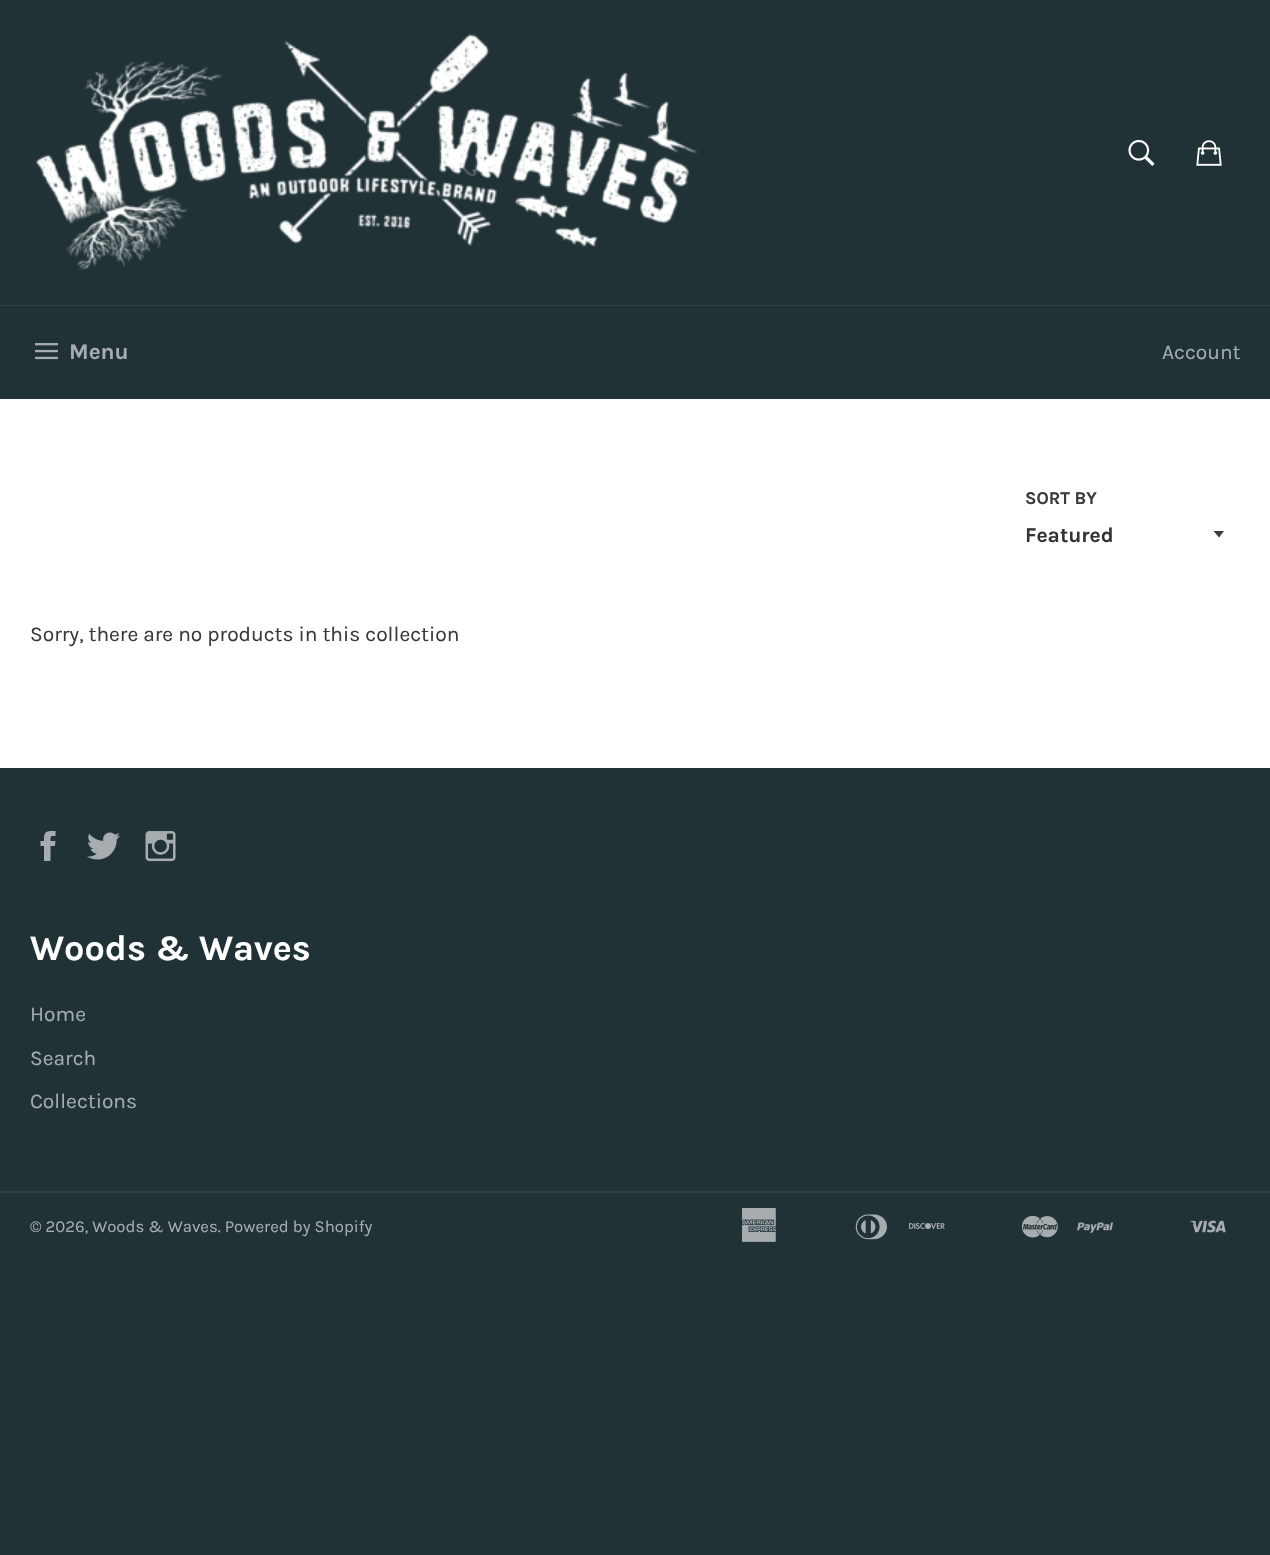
void draw(SkCanvas* canvas) {
	SkPaint paint;
	paint.setAntiAlias(true);
	auto svgPath = [&](const char* data, bool evenOdd = false) {
		SkPath result = *SkParsePath::FromSVGString(data);
		if (evenOdd) result.setFillType(SkPathFillType::kEvenOdd);
		return result;
	};
	canvas->clear(0xff213236);
	paint.setColor(0xffffffff);
	canvas->drawRect(SkRect::MakeXYWH(0, 399, 1270, 369), paint);
	canvas->drawImageRect(SkImages::DeferredFromEncodedData(SkData::MakeFromFileName("img1.png")), SkRect::MakeXYWH(35, 34, 663, 236), SkSamplingOptions());
	canvas->drawImageRect(SkImages::DeferredFromEncodedData(SkData::MakeFromFileName("img2.png")), SkRect::MakeXYWH(1128, 139, 27, 27), SkSamplingOptions());
	canvas->drawImageRect(SkImages::DeferredFromEncodedData(SkData::MakeFromFileName("img3.png")), SkRect::MakeXYWH(1196, 140, 26, 26), SkSamplingOptions());
	paint.setColor(0xff2b4146);
	canvas->drawRect(SkRect::MakeXYWH(0, 305, 1270, 1), paint);
	canvas->drawImageRect(SkImages::DeferredFromEncodedData(SkData::MakeFromFileName("img4.png")), SkRect::MakeXYWH(35, 343, 23, 17), SkSamplingOptions());
	SkFont f1(fontMgr->matchFamilyStyle("Karla", SkFontStyle::Bold()), 22.5);
	f1.setSubpixel(true);
	paint.setColor(0xffa6adaf);
	canvas->drawString("Menu", 69, 359, f1, paint);
	SkFont f2(fontMgr->matchFamilyStyle("Karla", SkFontStyle::Normal()), 21);
	f2.setSubpixel(true);
	canvas->drawString("Account", 1162, 359, f2, paint);
	SkFont f3(fontMgr->matchFamilyStyle("Karla", SkFontStyle::Bold()), 18);
	f3.setSubpixel(true);
	paint.setColor(0xff3a3a3a);
	canvas->drawString("SORT BY", 1025, 504, f3, paint);
	canvas->drawPath(svgPath("M1213.5 531L1219 537.5L1224 531Z"), paint);
	SkFont f4(fontMgr->matchFamilyStyle("Karla", SkFontStyle::Bold()), 21);
	f4.setSubpixel(true);
	paint.setColor(0xff333333);
	canvas->drawString("Featured", 1025, 542, f4, paint);
	paint.setColor(0xff3a3a3a);
	canvas->drawString("Sorry, there are no products in this collection", 30, 641, f2, paint);
	canvas->drawImageRect(SkImages::DeferredFromEncodedData(SkData::MakeFromFileName("img5.png")), SkRect::MakeXYWH(40, 831, 16, 30), SkSamplingOptions());
	canvas->drawImageRect(SkImages::DeferredFromEncodedData(SkData::MakeFromFileName("img6.png")), SkRect::MakeXYWH(87, 832, 33, 28), SkSamplingOptions());
	canvas->drawImageRect(SkImages::DeferredFromEncodedData(SkData::MakeFromFileName("img7.png")), SkRect::MakeXYWH(145, 831, 31, 31), SkSamplingOptions());
	SkFont f5(fontMgr->matchFamilyStyle("Karla", SkFontStyle::Bold()), 36);
	f5.setSubpixel(true);
	paint.setColor(0xffffffff);
	canvas->drawString("Woods & Waves", 30, 960, f5, paint);
	paint.setColor(0xffa6adaf);
	canvas->drawString("Home", 30, 1021, f2, paint);
	canvas->drawString("Search", 30, 1065, f2, paint);
	canvas->drawString("Collections", 30, 1108, f2, paint);
	paint.setColor(0xff2b4146);
	canvas->drawRect(SkRect::MakeXYWH(0, 1191, 1270, 2), paint);
	SkFont f6(fontMgr->matchFamilyStyle("Karla", SkFontStyle::Normal()), 16.8);
	f6.setSubpixel(true);
	paint.setColor(0xffa6adaf);
	canvas->drawString("© 2026, Woods & Waves. Powered by Shopify", 30, 1232, f6, paint);
	canvas->drawImageRect(SkImages::DeferredFromEncodedData(SkData::MakeFromFileName("img8.png")), SkRect::MakeXYWH(742, 1208, 34, 34), SkSamplingOptions());
	canvas->drawImageRect(SkImages::DeferredFromEncodedData(SkData::MakeFromFileName("img9.png")), SkRect::MakeXYWH(855, 1214, 32, 26), SkSamplingOptions());
	canvas->drawImageRect(SkImages::DeferredFromEncodedData(SkData::MakeFromFileName("img10.png")), SkRect::MakeXYWH(909, 1223, 36, 6), SkSamplingOptions());
	canvas->drawImageRect(SkImages::DeferredFromEncodedData(SkData::MakeFromFileName("img11.png")), SkRect::MakeXYWH(1022, 1215, 36, 23), SkSamplingOptions());
	canvas->drawImageRect(SkImages::DeferredFromEncodedData(SkData::MakeFromFileName("img12.png")), SkRect::MakeXYWH(1077, 1222, 36, 11), SkSamplingOptions());
	canvas->drawImageRect(SkImages::DeferredFromEncodedData(SkData::MakeFromFileName("img13.png")), SkRect::MakeXYWH(1190, 1220, 36, 13), SkSamplingOptions());
}
